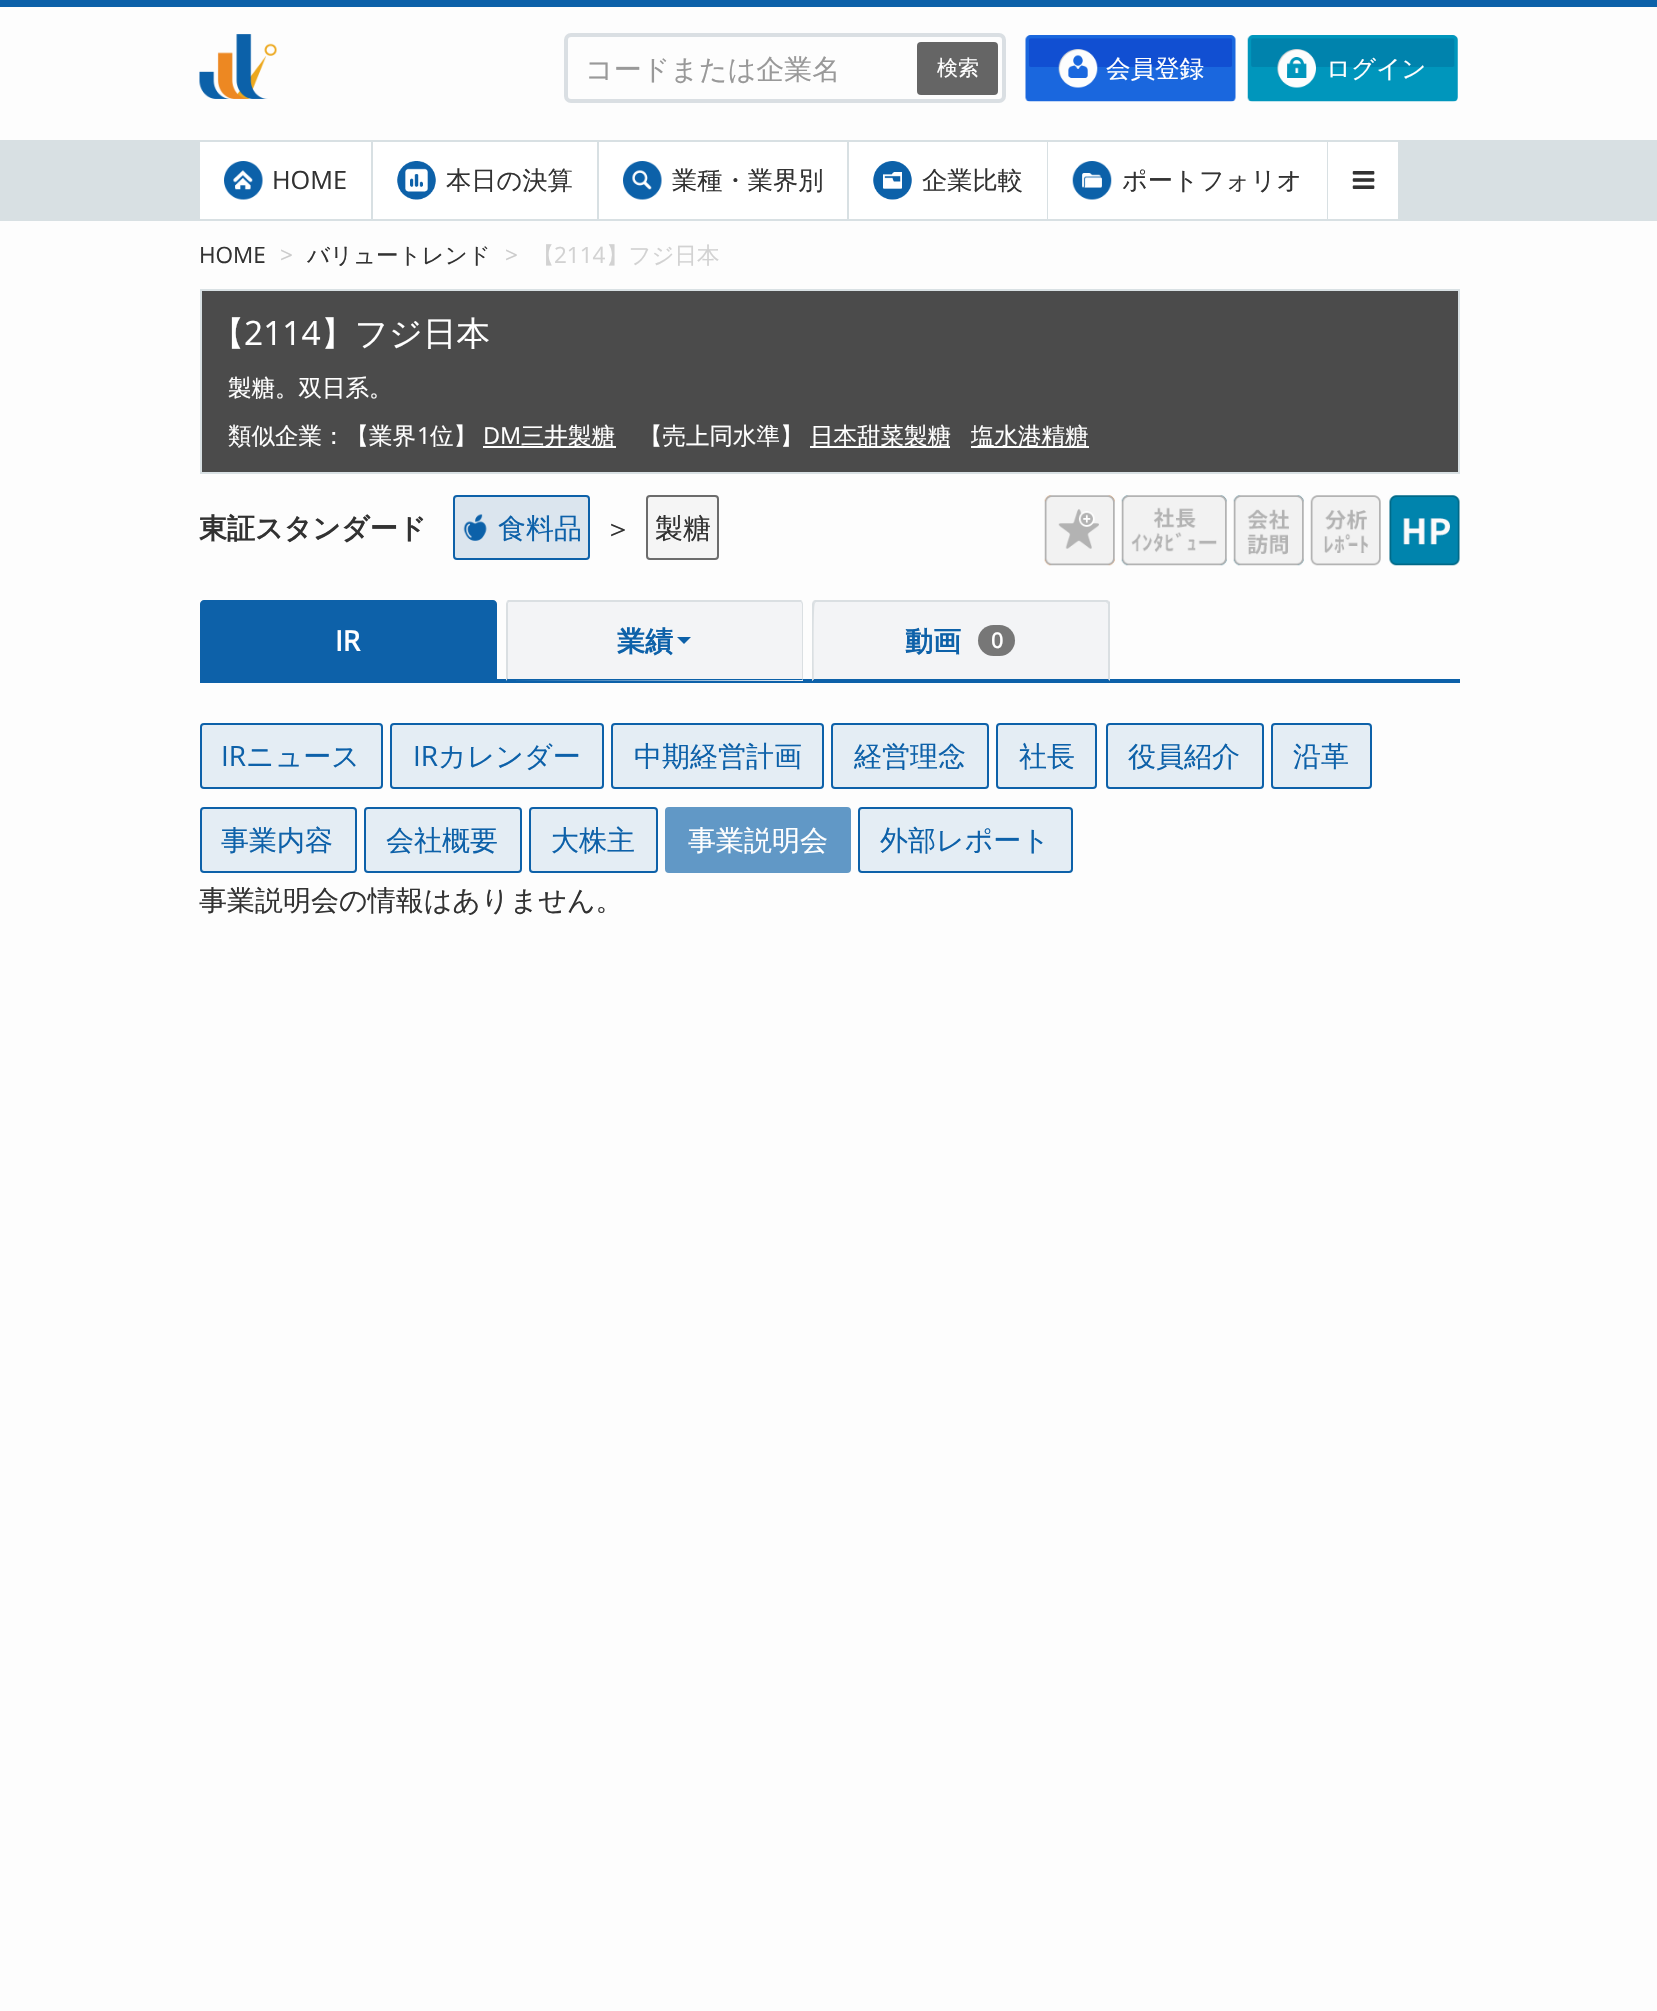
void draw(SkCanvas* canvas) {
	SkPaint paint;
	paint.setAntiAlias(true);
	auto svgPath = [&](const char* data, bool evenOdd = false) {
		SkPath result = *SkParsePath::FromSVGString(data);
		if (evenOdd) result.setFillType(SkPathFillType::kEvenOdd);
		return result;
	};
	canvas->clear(0xfffdfdfd);
	paint.setColor(0xff0d61a9);
	canvas->drawRect(SkRect::MakeXYWH(0, 0, 1657, 7), paint);
	canvas->drawImageRect(SkImages::DeferredFromEncodedData(SkData::MakeFromFileName("img1.png")), SkRect::MakeXYWH(199, 34, 78, 65), SkSamplingOptions());
	paint.setStroke(true);
	paint.setStrokeWidth(4);
	paint.setColor(0xffdadfe3);
	canvas->drawRoundRect(SkRect::MakeXYWH(566, 35, 438, 66), 5, 5, paint);
	SkFont f1(fontMgr->matchFamilyStyle("WenQuanYi Zen Hei", SkFontStyle(500, SkFontStyle::kNormal_Width, SkFontStyle::kUpright_Slant)), 28);
	f1.setSubpixel(true);
	paint.setStroke(false);
	paint.setColor(0xff999999);
	canvas->drawString("コードまたは企業名", 585, 79, f1, paint);
	paint.setColor(0xff656565);
	canvas->drawRoundRect(SkRect::MakeXYWH(917, 42, 81, 53), 4, 4, paint);
	SkFont f2(fontMgr->matchFamilyStyle("WenQuanYi Zen Hei", SkFontStyle(500, SkFontStyle::kNormal_Width, SkFontStyle::kUpright_Slant)), 21);
	f2.setSubpixel(true);
	paint.setColor(0xffffffff);
	canvas->drawString("検索", 937, 75, f2, paint);
	canvas->drawImageRect(SkImages::DeferredFromEncodedData(SkData::MakeFromFileName("img2.png")), SkRect::MakeXYWH(1025, 35, 211, 67), SkSamplingOptions());
	canvas->drawImageRect(SkImages::DeferredFromEncodedData(SkData::MakeFromFileName("img3.png")), SkRect::MakeXYWH(1058, 49, 40, 39), SkSamplingOptions());
	SkFont f3(fontMgr->matchFamilyStyle("WenQuanYi Zen Hei", SkFontStyle(500, SkFontStyle::kNormal_Width, SkFontStyle::kUpright_Slant)), 24.5);
	f3.setSubpixel(true);
	canvas->drawString("会員登録", 1106, 77, f3, paint);
	canvas->drawImageRect(SkImages::DeferredFromEncodedData(SkData::MakeFromFileName("img4.png")), SkRect::MakeXYWH(1247, 35, 211, 67), SkSamplingOptions());
	canvas->drawImageRect(SkImages::DeferredFromEncodedData(SkData::MakeFromFileName("img5.png")), SkRect::MakeXYWH(1277, 49, 39, 39), SkSamplingOptions());
	canvas->drawString("ログイン", 1326, 77, f3, paint);
	paint.setColor(0xffd8e0e3);
	canvas->drawRect(SkRect::MakeXYWH(0, 140, 1657, 81), paint);
	paint.setColor(0xffffffff);
	canvas->drawRect(SkRect::MakeXYWH(200, 142, 171, 77), paint);
	canvas->drawImageRect(SkImages::DeferredFromEncodedData(SkData::MakeFromFileName("img6.png")), SkRect::MakeXYWH(224, 161, 39, 39), SkSamplingOptions());
	SkFont f4(fontMgr->matchFamilyStyle("Open Sans", SkFontStyle::Normal()), 25.25);
	f4.setSubpixel(true);
	paint.setColor(0xff323232);
	canvas->drawString("HOME", 272, 189, f4, paint);
	paint.setColor(0xffffffff);
	canvas->drawRect(SkRect::MakeXYWH(373, 142, 224, 77), paint);
	canvas->drawImageRect(SkImages::DeferredFromEncodedData(SkData::MakeFromFileName("img7.png")), SkRect::MakeXYWH(397, 161, 39, 39), SkSamplingOptions());
	SkFont f5(fontMgr->matchFamilyStyle("WenQuanYi Zen Hei", SkFontStyle(500, SkFontStyle::kNormal_Width, SkFontStyle::kUpright_Slant)), 25.25);
	f5.setSubpixel(true);
	paint.setColor(0xff323232);
	canvas->drawString("本日の決算", 446, 189, f5, paint);
	paint.setColor(0xffffffff);
	canvas->drawRect(SkRect::MakeXYWH(599, 142, 248, 77), paint);
	canvas->drawImageRect(SkImages::DeferredFromEncodedData(SkData::MakeFromFileName("img8.png")), SkRect::MakeXYWH(623, 161, 39, 39), SkSamplingOptions());
	paint.setColor(0xff323232);
	canvas->drawString("業種・業界別", 672, 189, f5, paint);
	paint.setColor(0xffffffff);
	canvas->drawRect(SkRect::MakeXYWH(849, 142, 198, 77), paint);
	canvas->drawImageRect(SkImages::DeferredFromEncodedData(SkData::MakeFromFileName("img9.png")), SkRect::MakeXYWH(873, 161, 39, 39), SkSamplingOptions());
	paint.setColor(0xff323232);
	canvas->drawString("企業比較", 922, 189, f5, paint);
	paint.setColor(0xffffffff);
	canvas->drawRect(SkRect::MakeXYWH(1048, 142, 279, 77), paint);
	canvas->drawImageRect(SkImages::DeferredFromEncodedData(SkData::MakeFromFileName("img10.png")), SkRect::MakeXYWH(1072, 161, 40, 39), SkSamplingOptions());
	paint.setColor(0xff323232);
	canvas->drawString("ポートフォリオ", 1122, 189, f5, paint);
	paint.setColor(0xffffffff);
	canvas->drawRect(SkRect::MakeXYWH(1328, 142, 70, 77), paint);
	canvas->drawImageRect(SkImages::DeferredFromEncodedData(SkData::MakeFromFileName("img11.png")), SkRect::MakeXYWH(1352, 171, 23, 18), SkSamplingOptions());
	SkFont f6(fontMgr->matchFamilyStyle("Open Sans", SkFontStyle::Normal()), 22.5);
	f6.setSubpixel(true);
	paint.setColor(0xff323232);
	canvas->drawString("HOME", 199, 263, f6, paint);
	paint.setColor(0xffcccccc);
	canvas->drawString(">", 280, 263, f6, paint);
	SkFont f7(fontMgr->matchFamilyStyle("WenQuanYi Zen Hei", SkFontStyle(500, SkFontStyle::kNormal_Width, SkFontStyle::kUpright_Slant)), 22.5);
	f7.setSubpixel(true);
	paint.setColor(0xff323232);
	canvas->drawString("バリュートレンド", 307, 263, f7, paint);
	paint.setColor(0xffcccccc);
	canvas->drawString(">", 505, 263, f6, paint);
	paint.setColor(0xffd2d2d2);
	canvas->drawString("【", 532, 263, f7, paint);
	canvas->drawString("2114", 554, 263, f6, paint);
	canvas->drawString("】フジ日本", 606, 263, f7, paint);
	paint.setColor(0xff4b4b4b);
	canvas->drawRect(SkRect::MakeXYWH(201, 290, 1258, 183), paint);
	paint.setStroke(true);
	paint.setStrokeWidth(2);
	paint.setColor(0xffd9e1e4);
	canvas->drawRect(SkRect::MakeXYWH(201, 290, 1258, 183), paint);
	SkFont f8(fontMgr->matchFamilyStyle("WenQuanYi Zen Hei", SkFontStyle(500, SkFontStyle::kNormal_Width, SkFontStyle::kUpright_Slant)), 33.5);
	f8.setSubpixel(true);
	paint.setStroke(false);
	paint.setColor(0xffffffff);
	canvas->drawString("【", 211, 345, f8, paint);
	SkFont f9(fontMgr->matchFamilyStyle("Open Sans", SkFontStyle::Normal()), 33.5);
	f9.setSubpixel(true);
	canvas->drawString("2114", 244, 345, f9, paint);
	canvas->drawString("】フジ日本", 321, 345, f8, paint);
	SkFont f10(fontMgr->matchFamilyStyle("WenQuanYi Zen Hei", SkFontStyle(500, SkFontStyle::kNormal_Width, SkFontStyle::kUpright_Slant)), 23.5);
	f10.setSubpixel(true);
	canvas->drawString("製糖。双日系。", 228, 396, f10, paint);
	canvas->drawString("類似企業：【業界", 228, 444, f10, paint);
	SkFont f11(fontMgr->matchFamilyStyle("Open Sans", SkFontStyle::Normal()), 23.5);
	f11.setSubpixel(true);
	canvas->drawString("1", 417, 444, f11, paint);
	canvas->drawString("位】", 430, 444, f10, paint);
	canvas->drawString("DM", 483, 444, f11, paint);
	canvas->drawRect(SkRect::MakeXYWH(483, 446, 133, 2), paint);
	canvas->drawString("三井製糖", 521, 444, f10, paint);
	canvas->drawString("【売上同水準】", 639, 444, f10, paint);
	canvas->drawRect(SkRect::MakeXYWH(810, 446, 140, 2), paint);
	canvas->drawString("日本甜菜製糖", 810, 444, f10, paint);
	canvas->drawRect(SkRect::MakeXYWH(971, 446, 118, 2), paint);
	canvas->drawString("塩水港精糖", 971, 444, f10, paint);
	SkFont f12(fontMgr->matchFamilyStyle("WenQuanYi Zen Hei", SkFontStyle::Bold()), 28);
	f12.setSubpixel(true);
	paint.setColor(0xff323232);
	canvas->drawString("東証スタンダード", 199, 538, f12, paint);
	paint.setColor(0xffdbe5ee);
	canvas->drawRoundRect(SkRect::MakeXYWH(454, 496, 135, 63), 3, 3, paint);
	paint.setStroke(true);
	paint.setColor(0xff0d61a9);
	canvas->drawRoundRect(SkRect::MakeXYWH(454, 496, 135, 63), 3, 3, paint);
	canvas->drawImageRect(SkImages::DeferredFromEncodedData(SkData::MakeFromFileName("img12.png")), SkRect::MakeXYWH(463, 514, 24, 27), SkSamplingOptions());
	paint.setStroke(false);
	canvas->drawString("食料品", 498, 538, f1, paint);
	paint.setColor(0xff323232);
	canvas->drawString("＞", 604, 538, f1, paint);
	paint.setColor(0xfff5f5f5);
	canvas->drawRoundRect(SkRect::MakeXYWH(647, 496, 71, 63), 3, 3, paint);
	paint.setStroke(true);
	paint.setColor(0xff6c6c6c);
	canvas->drawRoundRect(SkRect::MakeXYWH(647, 496, 71, 63), 3, 3, paint);
	paint.setStroke(false);
	paint.setColor(0xff323232);
	canvas->drawString("製糖", 655, 538, f1, paint);
	canvas->drawImageRect(SkImages::DeferredFromEncodedData(SkData::MakeFromFileName("img13.png")), SkRect::MakeXYWH(1044, 495, 71, 71), SkSamplingOptions());
	canvas->drawImageRect(SkImages::DeferredFromEncodedData(SkData::MakeFromFileName("img14.png")), SkRect::MakeXYWH(1121, 495, 106, 71), SkSamplingOptions());
	canvas->drawImageRect(SkImages::DeferredFromEncodedData(SkData::MakeFromFileName("img15.png")), SkRect::MakeXYWH(1233, 495, 71, 71), SkSamplingOptions());
	canvas->drawImageRect(SkImages::DeferredFromEncodedData(SkData::MakeFromFileName("img16.png")), SkRect::MakeXYWH(1310, 495, 71, 71), SkSamplingOptions());
	canvas->drawImageRect(SkImages::DeferredFromEncodedData(SkData::MakeFromFileName("img17.png")), SkRect::MakeXYWH(1389, 495, 71, 71), SkSamplingOptions());
	paint.setColor(0xff0d61a9);
	canvas->drawRect(SkRect::MakeXYWH(200, 679, 1260, 4), paint);
	canvas->drawPath(svgPath("M204 601H493C494.5 601 496 602.5 496 604V680H201V604C201 602.5 202.5 601 204 601Z"), paint);
	paint.setStroke(true);
	canvas->drawPath(svgPath("M204 601H493C494.5 601 496 602.5 496 604V680H201V604C201 602.5 202.5 601 204 601Z"), paint);
	SkFont f13(fontMgr->matchFamilyStyle("Open Sans", SkFontStyle::Bold()), 28);
	f13.setSubpixel(true);
	paint.setStroke(false);
	paint.setColor(0xffffffff);
	canvas->drawString("IR", 335, 651, f13, paint);
	paint.setColor(0xfff3f4f6);
	canvas->drawPath(svgPath("M510 600H799C801 600 803 602 803 604V681H506V604C506 602 508 600 510 600Z"), paint);
	paint.setColor(0xffdadfe2);
	canvas->drawPath(svgPath("M509 602L508 603L507 601L508 600H801L802 601L801 602H800Z"), paint);
	canvas->drawPath(svgPath("M802 601L803 604V680L802 679V604L801 602Z"), paint);
	paint.setColor(0xff0d61a9);
	canvas->drawPath(svgPath("M506 681L508 678V679H802L803 680Z"), paint);
	paint.setColor(0xffdadfe2);
	canvas->drawPath(svgPath("M506 680V604L507 601L508 603V678Z"), paint);
	paint.setColor(0xff0d61a9);
	canvas->drawString("業績", 617, 651, f12, paint);
	canvas->drawPath(svgPath("M677 637H691L684 644Z"), paint);
	paint.setColor(0xfff3f4f6);
	canvas->drawPath(svgPath("M816 600H1106C1108 600 1110 602 1110 604V681H812V604C812 602 814 600 816 600Z"), paint);
	paint.setColor(0xffdadfe2);
	canvas->drawPath(svgPath("M816 602L815 603L813 601L815 600H1107L1109 601L1107 603L1106 602Z"), paint);
	canvas->drawPath(svgPath("M1109 601L1110 602V681L1108 679V604L1107 603Z"), paint);
	paint.setColor(0xff0d61a9);
	canvas->drawPath(svgPath("M1110 681L1108 679H814L812 681Z"), paint);
	paint.setColor(0xffdadfe2);
	canvas->drawPath(svgPath("M812 681L814 679C814 671 813 604 815 603L813 601L812 604Z"), paint);
	paint.setColor(0xff0d61a9);
	canvas->drawString("動画", 905, 651, f12, paint);
	paint.setColor(0xff777777);
	canvas->drawRoundRect(SkRect::MakeXYWH(978, 625, 37, 31), 15.5, 15.5, paint);
	SkFont f14(fontMgr->matchFamilyStyle("Open Sans", SkFontStyle::Bold()), 21);
	f14.setSubpixel(true);
	paint.setColor(0xffffffff);
	canvas->drawString("0", 991, 648, f14, paint);
	paint.setColor(0xffe4edf4);
	canvas->drawRoundRect(SkRect::MakeXYWH(201, 724, 181, 64), 3, 3, paint);
	paint.setStroke(true);
	paint.setColor(0xff0d61a9);
	canvas->drawRoundRect(SkRect::MakeXYWH(201, 724, 181, 64), 3, 3, paint);
	SkFont f15(fontMgr->matchFamilyStyle("Open Sans", SkFontStyle::Normal()), 28);
	f15.setSubpixel(true);
	paint.setStroke(false);
	canvas->drawString("IR", 221, 766, f15, paint);
	canvas->drawString("ニュース", 246, 766, f1, paint);
	paint.setColor(0xffe4edf4);
	canvas->drawRoundRect(SkRect::MakeXYWH(391, 724, 212, 64), 3, 3, paint);
	paint.setStroke(true);
	paint.setColor(0xff0d61a9);
	canvas->drawRoundRect(SkRect::MakeXYWH(391, 724, 212, 64), 3, 3, paint);
	paint.setStroke(false);
	canvas->drawString("IR", 413, 766, f15, paint);
	canvas->drawString("カレンダー", 438, 766, f1, paint);
	paint.setColor(0xffe4edf4);
	canvas->drawRoundRect(SkRect::MakeXYWH(612, 724, 211, 64), 3, 3, paint);
	paint.setStroke(true);
	paint.setColor(0xff0d61a9);
	canvas->drawRoundRect(SkRect::MakeXYWH(612, 724, 211, 64), 3, 3, paint);
	paint.setStroke(false);
	canvas->drawString("中期経営計画", 634, 766, f1, paint);
	paint.setColor(0xffe4edf4);
	canvas->drawRoundRect(SkRect::MakeXYWH(832, 724, 156, 64), 3, 3, paint);
	paint.setStroke(true);
	paint.setColor(0xff0d61a9);
	canvas->drawRoundRect(SkRect::MakeXYWH(832, 724, 156, 64), 3, 3, paint);
	paint.setStroke(false);
	canvas->drawString("経営理念", 854, 766, f1, paint);
	paint.setColor(0xffe4edf4);
	canvas->drawRoundRect(SkRect::MakeXYWH(997, 724, 99, 64), 3, 3, paint);
	paint.setStroke(true);
	paint.setColor(0xff0d61a9);
	canvas->drawRoundRect(SkRect::MakeXYWH(997, 724, 99, 64), 3, 3, paint);
	paint.setStroke(false);
	canvas->drawString("社長", 1019, 766, f1, paint);
	paint.setColor(0xffe4edf4);
	canvas->drawRoundRect(SkRect::MakeXYWH(1107, 724, 156, 64), 3, 3, paint);
	paint.setStroke(true);
	paint.setColor(0xff0d61a9);
	canvas->drawRoundRect(SkRect::MakeXYWH(1107, 724, 156, 64), 3, 3, paint);
	paint.setStroke(false);
	canvas->drawString("役員紹介", 1128, 766, f1, paint);
	paint.setColor(0xffe4edf4);
	canvas->drawRoundRect(SkRect::MakeXYWH(1272, 724, 99, 64), 3, 3, paint);
	paint.setStroke(true);
	paint.setColor(0xff0d61a9);
	canvas->drawRoundRect(SkRect::MakeXYWH(1272, 724, 99, 64), 3, 3, paint);
	paint.setStroke(false);
	canvas->drawString("沿革", 1293, 766, f1, paint);
	paint.setColor(0xffe4edf4);
	canvas->drawRoundRect(SkRect::MakeXYWH(201, 808, 155, 64), 3, 3, paint);
	paint.setStroke(true);
	paint.setColor(0xff0d61a9);
	canvas->drawRoundRect(SkRect::MakeXYWH(201, 808, 155, 64), 3, 3, paint);
	paint.setStroke(false);
	canvas->drawString("事業内容", 221, 850, f1, paint);
	paint.setColor(0xffe4edf4);
	canvas->drawRoundRect(SkRect::MakeXYWH(365, 808, 156, 64), 3, 3, paint);
	paint.setStroke(true);
	paint.setColor(0xff0d61a9);
	canvas->drawRoundRect(SkRect::MakeXYWH(365, 808, 156, 64), 3, 3, paint);
	paint.setStroke(false);
	canvas->drawString("会社概要", 386, 850, f1, paint);
	paint.setColor(0xffe4edf4);
	canvas->drawRoundRect(SkRect::MakeXYWH(530, 808, 127, 64), 3, 3, paint);
	paint.setStroke(true);
	paint.setColor(0xff0d61a9);
	canvas->drawRoundRect(SkRect::MakeXYWH(530, 808, 127, 64), 3, 3, paint);
	paint.setStroke(false);
	canvas->drawString("大株主", 551, 850, f1, paint);
	paint.setColor(0xff6198c6);
	canvas->drawRoundRect(SkRect::MakeXYWH(666, 808, 184, 64), 3, 3, paint);
	paint.setStroke(true);
	canvas->drawRoundRect(SkRect::MakeXYWH(666, 808, 184, 64), 3, 3, paint);
	paint.setStroke(false);
	paint.setColor(0xffffffff);
	canvas->drawString("事業説明会", 688, 850, f1, paint);
	paint.setColor(0xffe4edf4);
	canvas->drawRoundRect(SkRect::MakeXYWH(859, 808, 213, 64), 3, 3, paint);
	paint.setStroke(true);
	paint.setColor(0xff0d61a9);
	canvas->drawRoundRect(SkRect::MakeXYWH(859, 808, 213, 64), 3, 3, paint);
	paint.setStroke(false);
	canvas->drawString("外部レポート", 880, 850, f1, paint);
	paint.setColor(0xff323232);
	canvas->drawString("事業説明会の情報はありません。", 199, 910, f1, paint);
}
